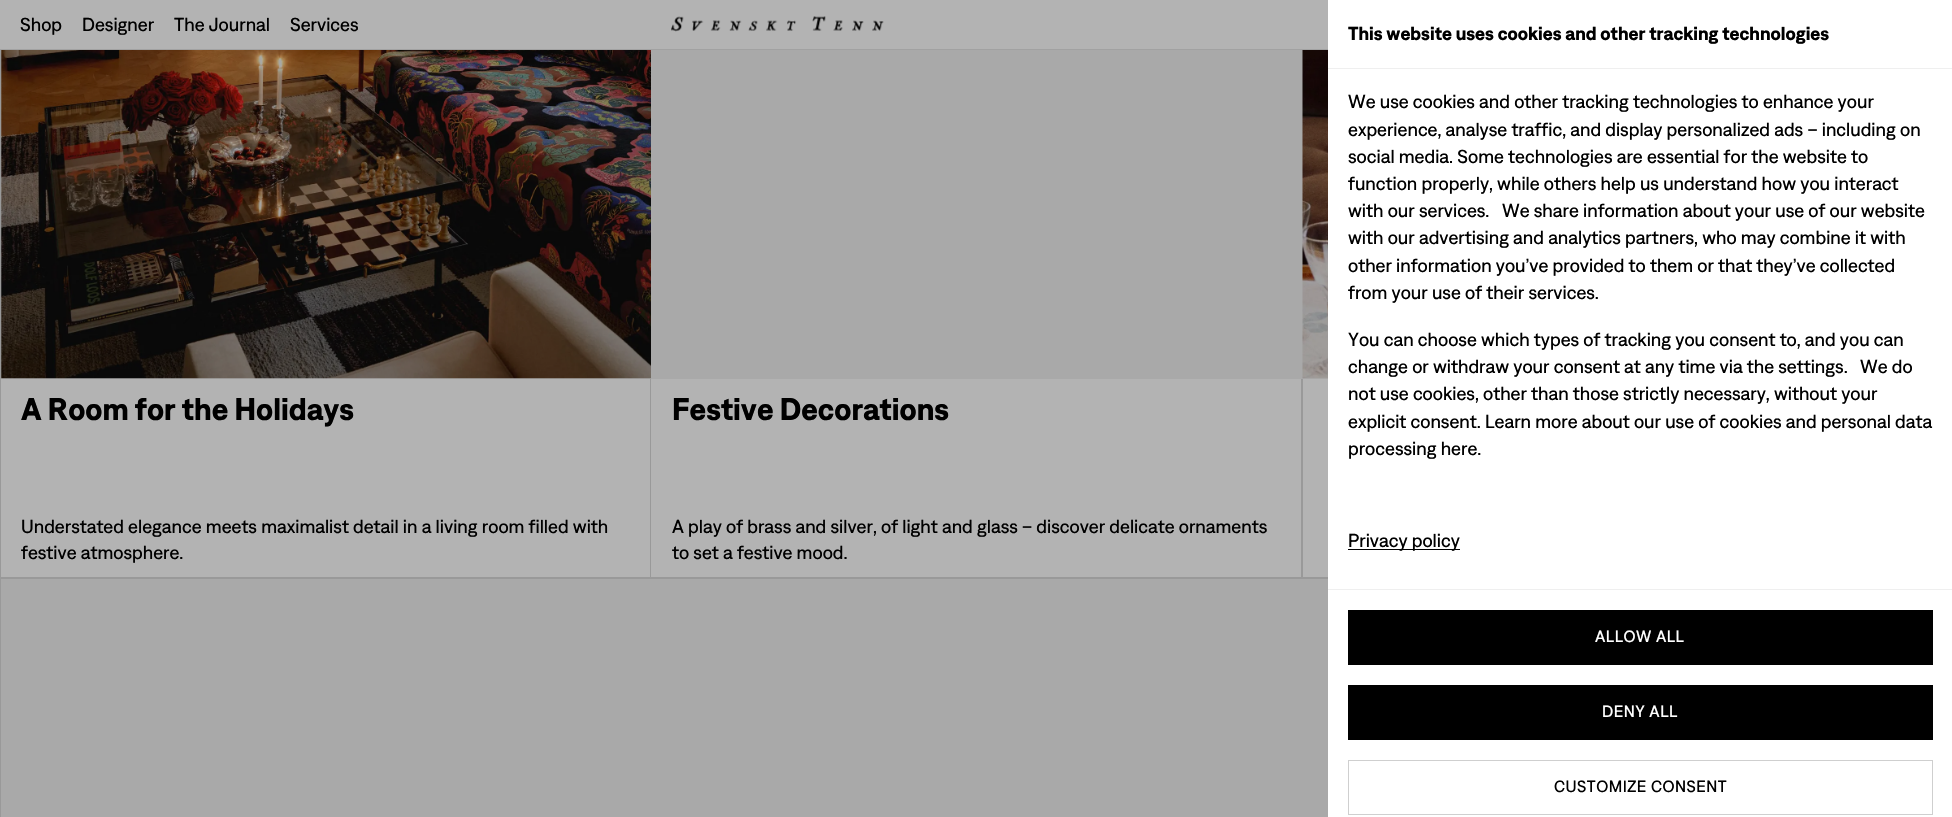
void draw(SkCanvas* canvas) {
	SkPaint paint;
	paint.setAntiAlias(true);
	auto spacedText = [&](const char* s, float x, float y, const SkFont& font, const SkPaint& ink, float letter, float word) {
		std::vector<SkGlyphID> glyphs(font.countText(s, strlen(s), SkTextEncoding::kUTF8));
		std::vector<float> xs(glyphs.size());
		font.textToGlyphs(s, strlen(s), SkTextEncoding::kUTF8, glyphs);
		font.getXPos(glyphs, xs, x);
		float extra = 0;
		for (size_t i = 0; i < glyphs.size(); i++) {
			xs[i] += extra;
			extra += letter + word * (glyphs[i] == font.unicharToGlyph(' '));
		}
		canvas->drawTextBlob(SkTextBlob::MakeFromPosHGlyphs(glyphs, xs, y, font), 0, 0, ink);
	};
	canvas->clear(0xffb3b3b3);
	paint.setStroke(true);
	paint.setStrokeWidth(1);
	paint.setColor(0xff999999);
	canvas->drawRect(SkRect::MakeXYWH(0.5, -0.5, 650, 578), paint);
	canvas->drawRect(SkRect::MakeXYWH(650.5, -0.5, 652, 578), paint);
	canvas->drawRect(SkRect::MakeXYWH(1301.5, -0.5, 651, 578), paint);
	paint.setStroke(false);
	paint.setColor(0xffb3b3b3);
	canvas->drawRect(SkRect::MakeXYWH(0, 0, 1303, 49), paint);
	paint.setColor(0xffa1a1a1);
	canvas->drawRect(SkRect::MakeXYWH(0, 49, 1328, 1), paint);
	SkFont f1(fontMgr->matchFamilyStyle("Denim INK", SkFontStyle::Normal()), 18.75);
	f1.setSubpixel(true);
	paint.setColor(0xff000000);
	canvas->drawString("Shop", 20, 31, f1, paint);
	canvas->drawString("Designer", 82, 31, f1, paint);
	canvas->drawString("The Journal", 174, 31, f1, paint);
	canvas->drawString("Services", 290, 31, f1, paint);
	canvas->drawImageRect(SkImages::DeferredFromEncodedData(SkData::MakeFromFileName("img1.png")), SkRect::MakeXYWH(671, 16, 213, 16), SkSamplingOptions());
	paint.setColor(0xffa9a9a9);
	canvas->drawRect(SkRect::MakeXYWH(1, 50, 1302, 329), paint);
	canvas->drawImageRect(SkImages::DeferredFromEncodedData(SkData::MakeFromFileName("img2.png")), SkRect::MakeXYWH(1, 50, 650, 329), SkSamplingOptions());
	SkFont f2(fontMgr->matchFamilyStyle("Denim INK", SkFontStyle::Bold()), 31.25);
	f2.setSubpixel(true);
	paint.setColor(0xff000000);
	canvas->drawString("A Room for the Holidays", 21, 420, f2, paint);
	canvas->drawString("Understated elegance meets maximalist detail in a living room filled with", 21, 533, f1, paint);
	canvas->drawString("festive atmosphere.", 21, 559, f1, paint);
	canvas->drawString("Festive Decorations", 672, 420, f2, paint);
	canvas->drawString("A play of brass and silver, of light and glass – discover delicate ornaments", 672, 533, f1, paint);
	canvas->drawString("to set a festive mood.", 672, 559, f1, paint);
	paint.setColor(0xffa9a9a9);
	canvas->drawRect(SkRect::MakeXYWH(1303, 378, 25, 1), paint);
	canvas->drawImageRect(SkImages::DeferredFromEncodedData(SkData::MakeFromFileName("img3.png")), SkRect::MakeXYWH(1302, 50, 26, 329), SkSamplingOptions());
	paint.setStroke(true);
	paint.setColor(0xff999999);
	canvas->drawRect(SkRect::MakeXYWH(0.5, 578.5, 650, 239), paint);
	canvas->drawRect(SkRect::MakeXYWH(650.5, 578.5, 652, 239), paint);
	canvas->drawRect(SkRect::MakeXYWH(1301.5, 578.5, 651, 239), paint);
	paint.setStroke(false);
	paint.setColor(0xffa9a9a9);
	canvas->drawRect(SkRect::MakeXYWH(1, 579, 1327, 238), paint);
	paint.setColor(0xffffffff);
	canvas->drawRect(SkRect::MakeXYWH(1328, 0, 624, 817), paint);
	paint.setColor(0xffefefef);
	canvas->drawRect(SkRect::MakeXYWH(1328, 68, 624, 1), paint);
	SkFont f3(fontMgr->matchFamilyStyle("Denim INK", SkFontStyle::Bold()), 18.75);
	f3.setSubpixel(true);
	paint.setColor(0xff000000);
	canvas->drawString("This website uses cookies and other tracking technologies", 1348, 40, f3, paint);
	canvas->drawString("We use cookies and other tracking technologies to enhance your", 1348, 108, f1, paint);
	canvas->drawString("experience, analyse traffic, and display personalized ads – including on", 1348, 136, f1, paint);
	canvas->drawString("social media. Some technologies are essential for the website to", 1348, 163, f1, paint);
	canvas->drawString("function properly, while others help us understand how you interact", 1348, 190, f1, paint);
	canvas->drawString("with our services.", 1348, 217, f1, paint);
	canvas->drawString("We share information about your use of our website", 1502, 217, f1, paint);
	canvas->drawString("with our advertising and analytics partners, who may combine it with", 1348, 244, f1, paint);
	canvas->drawString("other information you’ve provided to them or that they’ve collected", 1348, 272, f1, paint);
	canvas->drawString("from your use of their services.", 1348, 299, f1, paint);
	canvas->drawString("You can choose which types of tracking you consent to, and you can", 1348, 346, f1, paint);
	canvas->drawString("change or withdraw your consent at any time via the settings.", 1348, 373, f1, paint);
	canvas->drawString("We do", 1860, 373, f1, paint);
	canvas->drawString("not use cookies, other than those strictly necessary, without your", 1348, 400, f1, paint);
	canvas->drawString("explicit consent. Learn more about our use of cookies and personal data", 1348, 428, f1, paint);
	canvas->drawString("processing here.", 1348, 455, f1, paint);
	canvas->drawRect(SkRect::MakeXYWH(1348, 549, 112, 1), paint);
	canvas->drawString("Privacy policy", 1348, 547, f1, paint);
	paint.setColor(0xffefefef);
	canvas->drawRect(SkRect::MakeXYWH(1328, 589, 624, 1), paint);
	paint.setColor(0xff000000);
	canvas->drawRect(SkRect::MakeXYWH(1348, 610, 585, 55), paint);
	SkFont f4(fontMgr->matchFamilyStyle("Denim INK", SkFontStyle::Normal()), 16.25);
	f4.setSubpixel(true);
	paint.setColor(0xffffffff);
	spacedText("ALLOW ALL", 1595, 642, f4, paint, 0.5, 0);
	paint.setColor(0xff000000);
	canvas->drawRect(SkRect::MakeXYWH(1348, 685, 585, 55), paint);
	paint.setColor(0xffffffff);
	spacedText("DENY ALL", 1602, 717, f4, paint, 0.5, 0);
	paint.setStroke(true);
	paint.setColor(0xffcfcfcf);
	canvas->drawRect(SkRect::MakeXYWH(1348.5, 760.5, 584, 54), paint);
	paint.setStroke(false);
	paint.setColor(0xff000000);
	spacedText("CUSTOMIZE CONSENT", 1554, 792, f4, paint, 0.5, 0);
}
